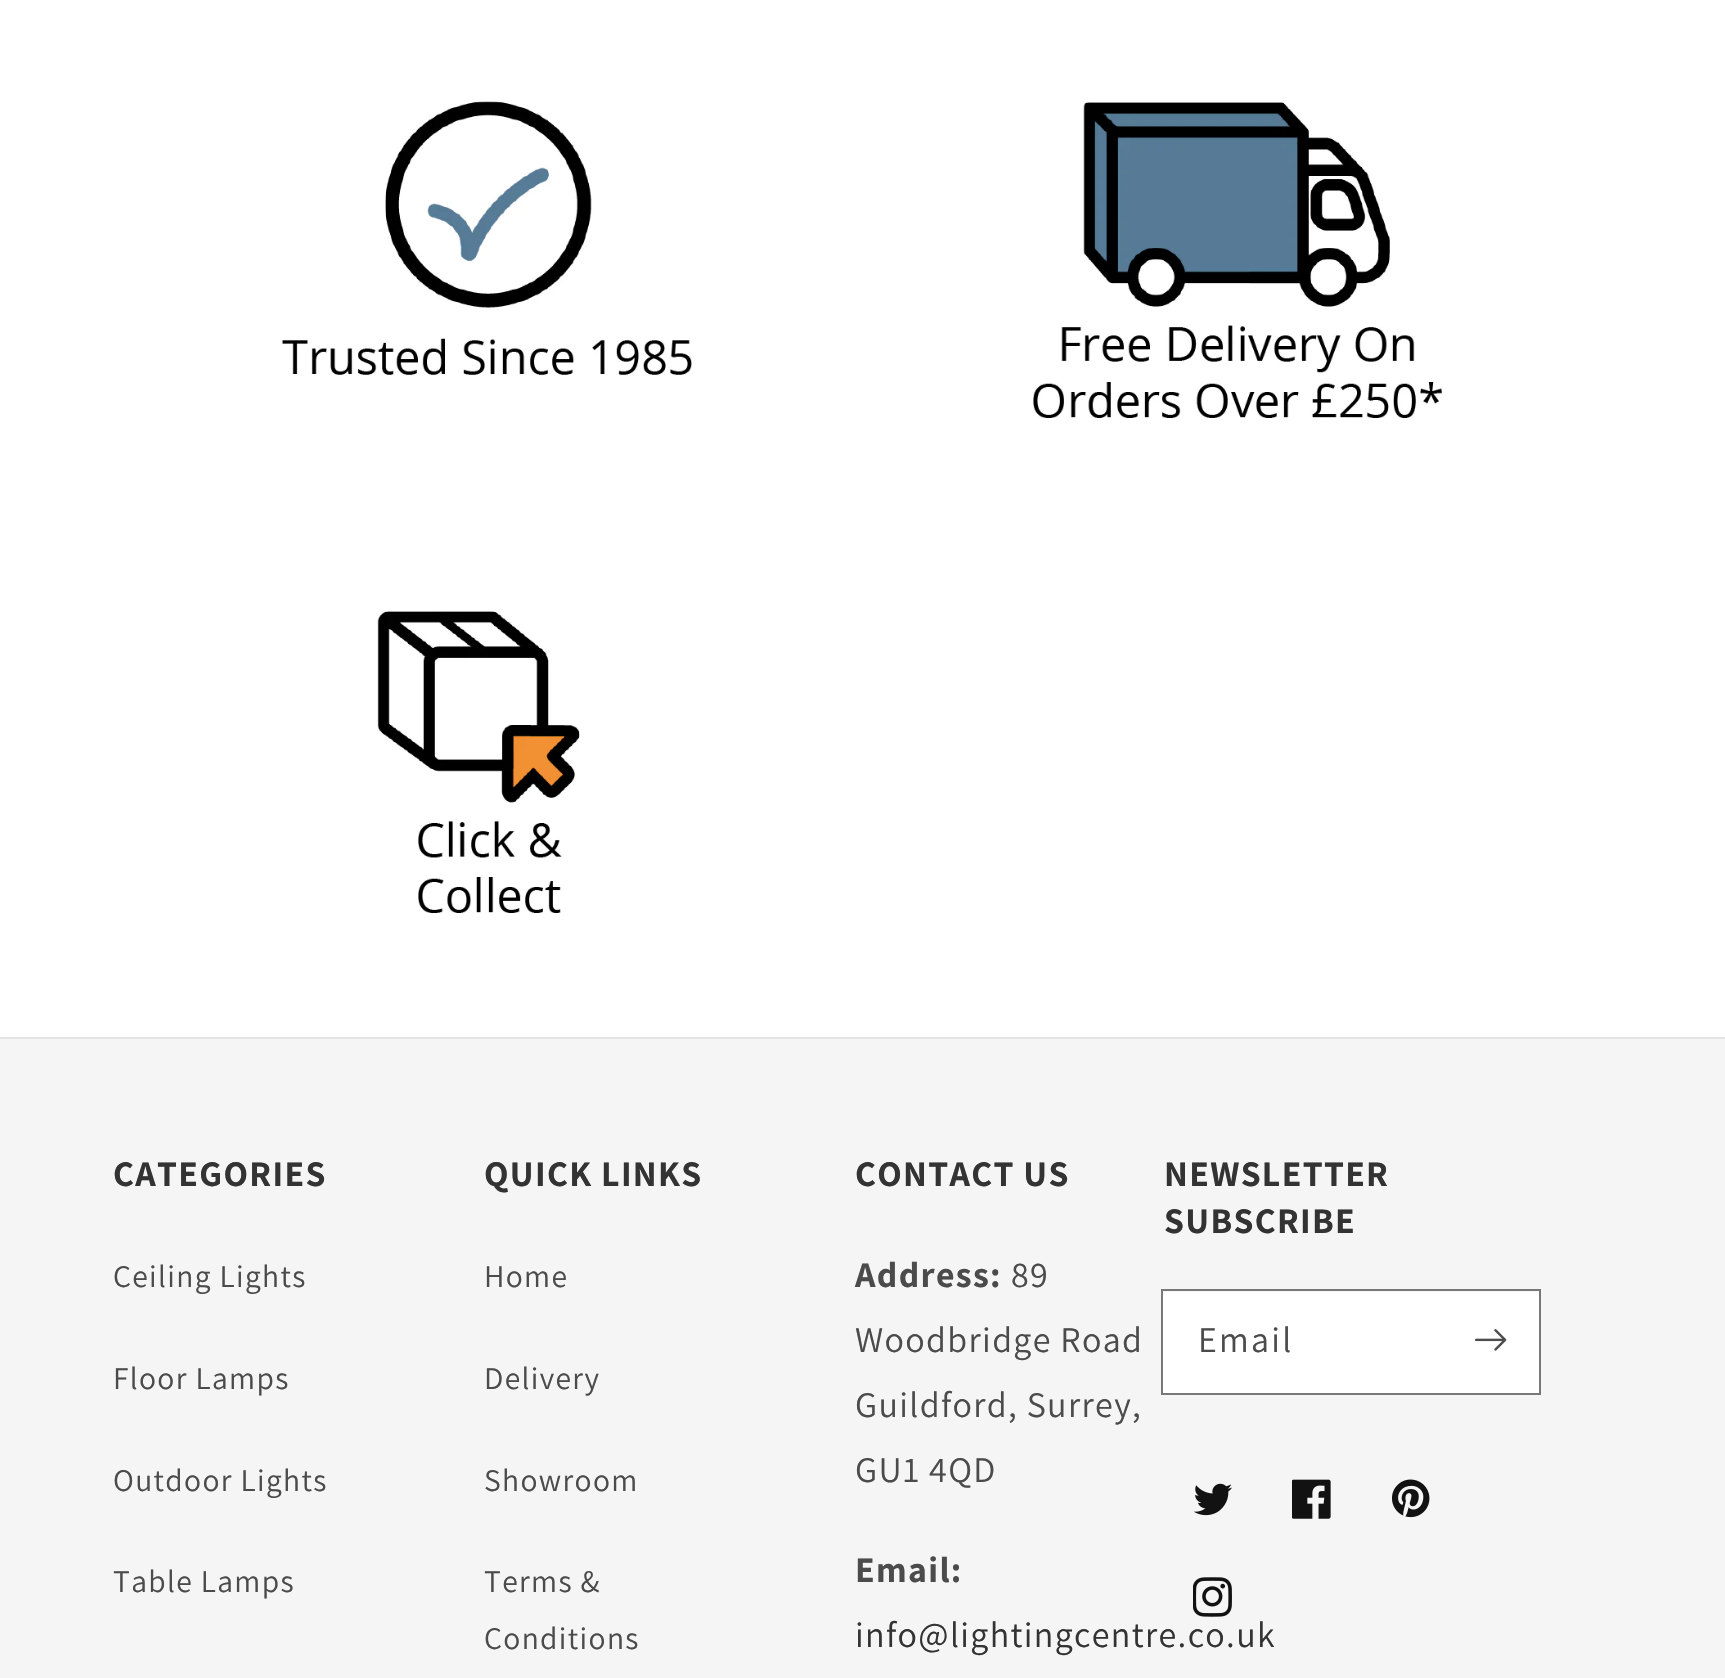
void draw(SkCanvas* canvas) {
	SkPaint paint;
	paint.setAntiAlias(true);
	auto spacedText = [&](const char* s, float x, float y, const SkFont& font, const SkPaint& ink, float letter, float word) {
		std::vector<SkGlyphID> glyphs(font.countText(s, strlen(s), SkTextEncoding::kUTF8));
		std::vector<float> xs(glyphs.size());
		font.textToGlyphs(s, strlen(s), SkTextEncoding::kUTF8, glyphs);
		font.getXPos(glyphs, xs, x);
		float extra = 0;
		for (size_t i = 0; i < glyphs.size(); i++) {
			xs[i] += extra;
			extra += letter + word * (glyphs[i] == font.unicharToGlyph(' '));
		}
		canvas->drawTextBlob(SkTextBlob::MakeFromPosHGlyphs(glyphs, xs, y, font), 0, 0, ink);
	};
	canvas->clear(0xffffffff);
	canvas->drawImageRect(SkImages::DeferredFromEncodedData(SkData::MakeFromFileName("img1.png")), SkRect::MakeXYWH(281, 101, 411, 275), SkSamplingOptions());
	canvas->drawImageRect(SkImages::DeferredFromEncodedData(SkData::MakeFromFileName("img2.png")), SkRect::MakeXYWH(1033, 102, 411, 316), SkSamplingOptions());
	canvas->drawImageRect(SkImages::DeferredFromEncodedData(SkData::MakeFromFileName("img3.png")), SkRect::MakeXYWH(377, 611, 203, 302), SkSamplingOptions());
	paint.setColor(0xfff5f5f5);
	canvas->drawRect(SkRect::MakeXYWH(0, 1039, 1725, 639), paint);
	paint.setColor(0xffe3e3e3);
	canvas->drawRect(SkRect::MakeXYWH(0, 1037, 1725, 2), paint);
	SkFont f1(fontMgr->matchFamilyStyle("Assistant", SkFontStyle::Bold()), 36);
	f1.setSubpixel(true);
	paint.setColor(0xff333333);
	spacedText("CATEGORIES", 113, 1186, f1, paint, 1.35, 0);
	SkFont f2(fontMgr->matchFamilyStyle("Assistant", SkFontStyle::Normal()), 31.5);
	f2.setSubpixel(true);
	paint.setColor(0xff4b4b4b);
	spacedText("Ceiling Lights", 113, 1287, f2, paint, 1.35, 0);
	spacedText("Floor Lamps", 113, 1389, f2, paint, 1.35, 0);
	spacedText("Outdoor Lights", 113, 1491, f2, paint, 1.35, 0);
	spacedText("Table Lamps", 113, 1592, f2, paint, 1.35, 0);
	paint.setColor(0xff333333);
	spacedText("QUICK LINKS", 484, 1186, f1, paint, 1.35, 0);
	paint.setColor(0xff4b4b4b);
	spacedText("Home", 484, 1287, f2, paint, 1.35, 0);
	spacedText("Delivery", 484, 1389, f2, paint, 1.35, 0);
	spacedText("Showroom", 484, 1491, f2, paint, 1.35, 0);
	spacedText("Terms &", 484, 1592, f2, paint, 1.35, 0);
	spacedText("Conditions", 484, 1649, f2, paint, 1.35, 0);
	paint.setColor(0xff333333);
	spacedText("CONTACT US", 855, 1186, f1, paint, 1.35, 0);
	paint.setColor(0xff4b4b4b);
	spacedText("Address:", 855, 1287, f1, paint, 1.35, 0);
	SkFont f3(fontMgr->matchFamilyStyle("Assistant", SkFontStyle::Normal()), 36);
	f3.setSubpixel(true);
	spacedText("89", 1011, 1287, f3, paint, 1.35, 0);
	spacedText("Woodbridge Road", 855, 1352, f3, paint, 1.35, 0);
	spacedText("Guildford, Surrey,", 855, 1417, f3, paint, 1.35, 0);
	spacedText("GU1 4QD", 855, 1482, f3, paint, 1.35, 0);
	spacedText("Email:", 855, 1582, f1, paint, 1.35, 0);
	paint.setColor(0xff333333);
	spacedText("info@lightingcentre.co.uk", 855, 1647, f3, paint, 1.35, 0);
	spacedText("NEWSLETTER", 1164, 1186, f1, paint, 1.35, 0);
	spacedText("SUBSCRIBE", 1164, 1233, f1, paint, 1.35, 0);
	paint.setStroke(true);
	paint.setStrokeWidth(2);
	paint.setColor(0xff787878);
	canvas->drawRect(SkRect::MakeXYWH(1162, 1290, 378, 104), paint);
	paint.setStroke(false);
	paint.setColor(0xffffffff);
	canvas->drawRect(SkRect::MakeXYWH(1163, 1292, 376, 101), paint);
	paint.setColor(0xff4b4b4b);
	spacedText("Email", 1198, 1352, f3, paint, 2.25, 0);
	canvas->drawImageRect(SkImages::DeferredFromEncodedData(SkData::MakeFromFileName("img4.png")), SkRect::MakeXYWH(1475, 1329, 32, 22), SkSamplingOptions());
	canvas->drawImageRect(SkImages::DeferredFromEncodedData(SkData::MakeFromFileName("img5.png")), SkRect::MakeXYWH(1193, 1483, 39, 33), SkSamplingOptions());
	canvas->drawImageRect(SkImages::DeferredFromEncodedData(SkData::MakeFromFileName("img6.png")), SkRect::MakeXYWH(1292, 1479, 39, 40), SkSamplingOptions());
	canvas->drawImageRect(SkImages::DeferredFromEncodedData(SkData::MakeFromFileName("img7.png")), SkRect::MakeXYWH(1392, 1479, 38, 39), SkSamplingOptions());
	canvas->drawImageRect(SkImages::DeferredFromEncodedData(SkData::MakeFromFileName("img8.png")), SkRect::MakeXYWH(1193, 1577, 39, 40), SkSamplingOptions());
}
